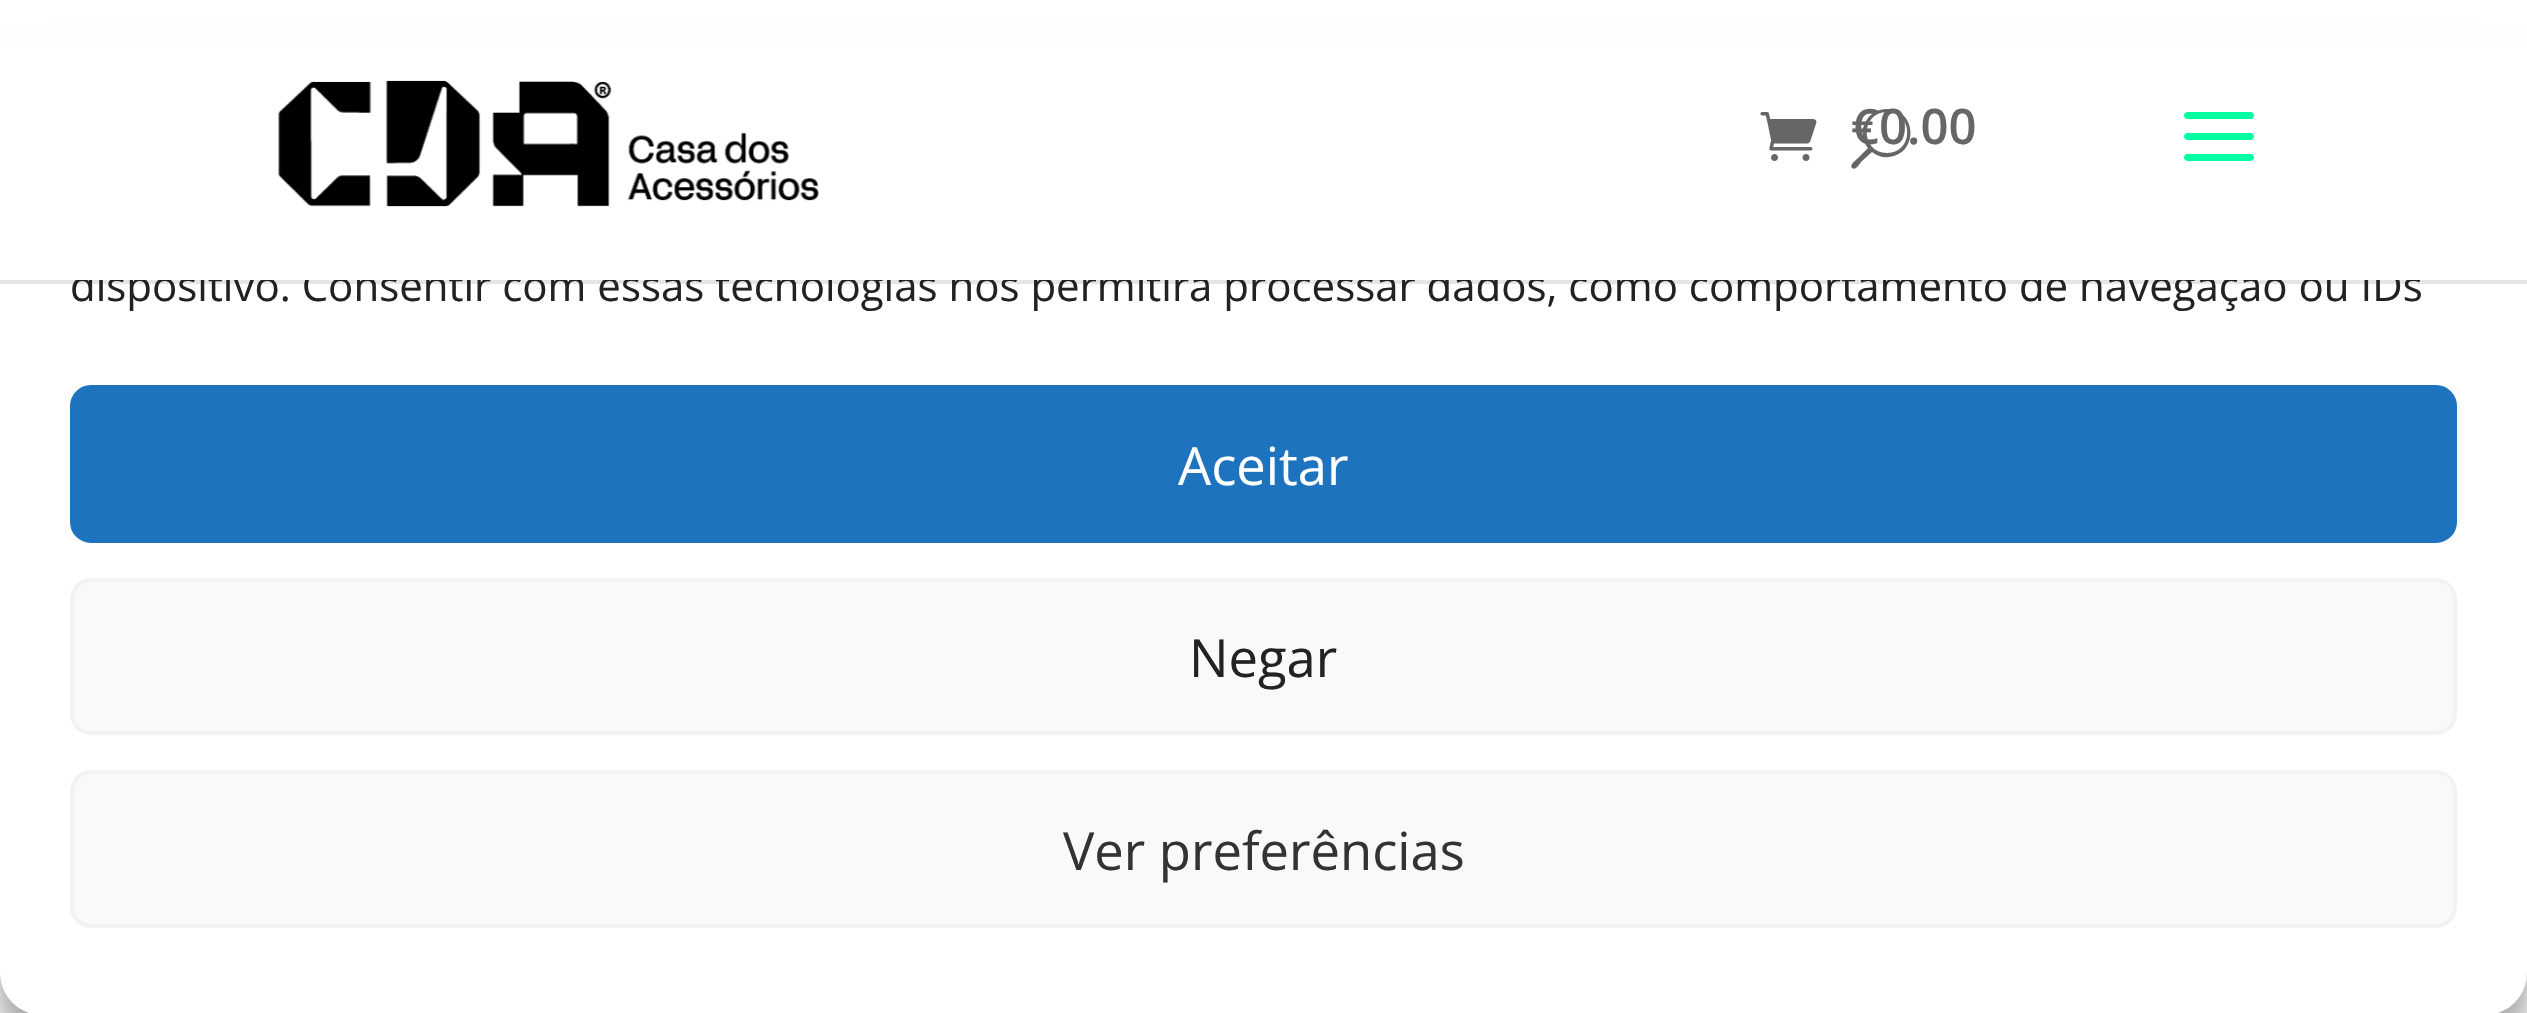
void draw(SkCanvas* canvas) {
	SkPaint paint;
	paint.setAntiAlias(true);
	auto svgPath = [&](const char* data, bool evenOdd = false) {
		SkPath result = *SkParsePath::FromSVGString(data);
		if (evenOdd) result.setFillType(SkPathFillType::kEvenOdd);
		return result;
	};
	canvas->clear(0xffffffff);
	paint.setColor(0x3b000000);
	paint.setMaskFilter(SkMaskFilter::MakeBlur(kNormal_SkBlurStyle, 10.5));
	canvas->drawRoundRect(SkRect::MakeXYWH(0, 91, 2527, 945), 42, 42, paint);
	paint.setMaskFilter(nullptr);
	paint.setColor(0x30000000);
	paint.setMaskFilter(SkMaskFilter::MakeBlur(kNormal_SkBlurStyle, 35));
	canvas->drawRoundRect(SkRect::MakeXYWH(0, 105, 2527, 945), 42, 42, paint);
	paint.setMaskFilter(nullptr);
	paint.setColor(0xffffffff);
	canvas->drawRoundRect(SkRect::MakeXYWH(0, 70, 2527, 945), 42, 42, paint);
	paint.setColor(0x1a000000);
	canvas->drawRect(SkRect::MakeXYWH(0, 280, 2527, 4), paint);
	SkFont f1(fontMgr->matchFamilyStyle("Open Sans", SkFontStyle::Normal()), 42);
	f1.setSubpixel(true);
	paint.setColor(0xff222222);
	canvas->drawString("dispositivo. Consentir com essas tecnologias nos permitirá processar dados, como comportamento de navegação ou IDs", 70, 301, f1, paint);
	paint.setColor(0xffffffff);
	canvas->drawRect(SkRect::MakeXYWH(0, 48, 2527, 232), paint);
	canvas->drawImageRect(SkImages::DeferredFromEncodedData(SkData::MakeFromFileName("img1.png")), SkRect::MakeXYWH(278, 80, 541, 127), SkSamplingOptions());
	SkFont f2(fontMgr->matchFamilyStyle("Open Sans", SkFontStyle(600, SkFontStyle::kNormal_Width, SkFontStyle::kUpright_Slant)), 49);
	f2.setSubpixel(true);
	paint.setColor(0xff666666);
	canvas->drawString("€0.00", 1851, 144, f2, paint);
	canvas->drawImageRect(SkImages::DeferredFromEncodedData(SkData::MakeFromFileName("img2.png")), SkRect::MakeXYWH(1760, 112, 57, 49), SkSamplingOptions());
	canvas->drawPath(svgPath("M1887 109C1867 109 1855 132 1868 148L1857 159C1856 160 1849 165 1852 168C1855 171 1860 164 1861 162L1872 152C1877 156 1883 158 1889 157C1919 154 1917 109 1887 109ZM1887 153C1860 153 1860 112 1887 112C1914 112 1914 153 1887 153Z"), paint);
	canvas->drawImageRect(SkImages::DeferredFromEncodedData(SkData::MakeFromFileName("img3.png")), SkRect::MakeXYWH(2184, 112, 70, 49), SkSamplingOptions());
	paint.setColor(0xff1e73be);
	canvas->drawRoundRect(SkRect::MakeXYWH(72, 387, 2383, 154), 19, 19, paint);
	paint.setStroke(true);
	paint.setStrokeWidth(4);
	canvas->drawRoundRect(SkRect::MakeXYWH(72, 387, 2383, 154), 19, 19, paint);
	SkFont f3(fontMgr->matchFamilyStyle("Open Sans", SkFontStyle::Normal()), 52.5);
	f3.setSubpixel(true);
	paint.setStroke(false);
	paint.setColor(0xffffffff);
	canvas->drawString("Aceitar", 1178, 485, f3, paint);
	paint.setColor(0xfff9f9f9);
	canvas->drawRoundRect(SkRect::MakeXYWH(72, 580, 2383, 153), 19, 19, paint);
	paint.setStroke(true);
	paint.setColor(0xfff2f2f2);
	canvas->drawRoundRect(SkRect::MakeXYWH(72, 580, 2383, 153), 19, 19, paint);
	paint.setStroke(false);
	paint.setColor(0xff222222);
	canvas->drawString("Negar", 1189, 677, f3, paint);
	paint.setColor(0xfff9f9f9);
	canvas->drawRoundRect(SkRect::MakeXYWH(72, 772, 2383, 154), 19, 19, paint);
	paint.setStroke(true);
	paint.setColor(0xfff2f2f2);
	canvas->drawRoundRect(SkRect::MakeXYWH(72, 772, 2383, 154), 19, 19, paint);
	paint.setStroke(false);
	paint.setColor(0xff333333);
	canvas->drawString("Ver preferências", 1063, 870, f3, paint);
}
